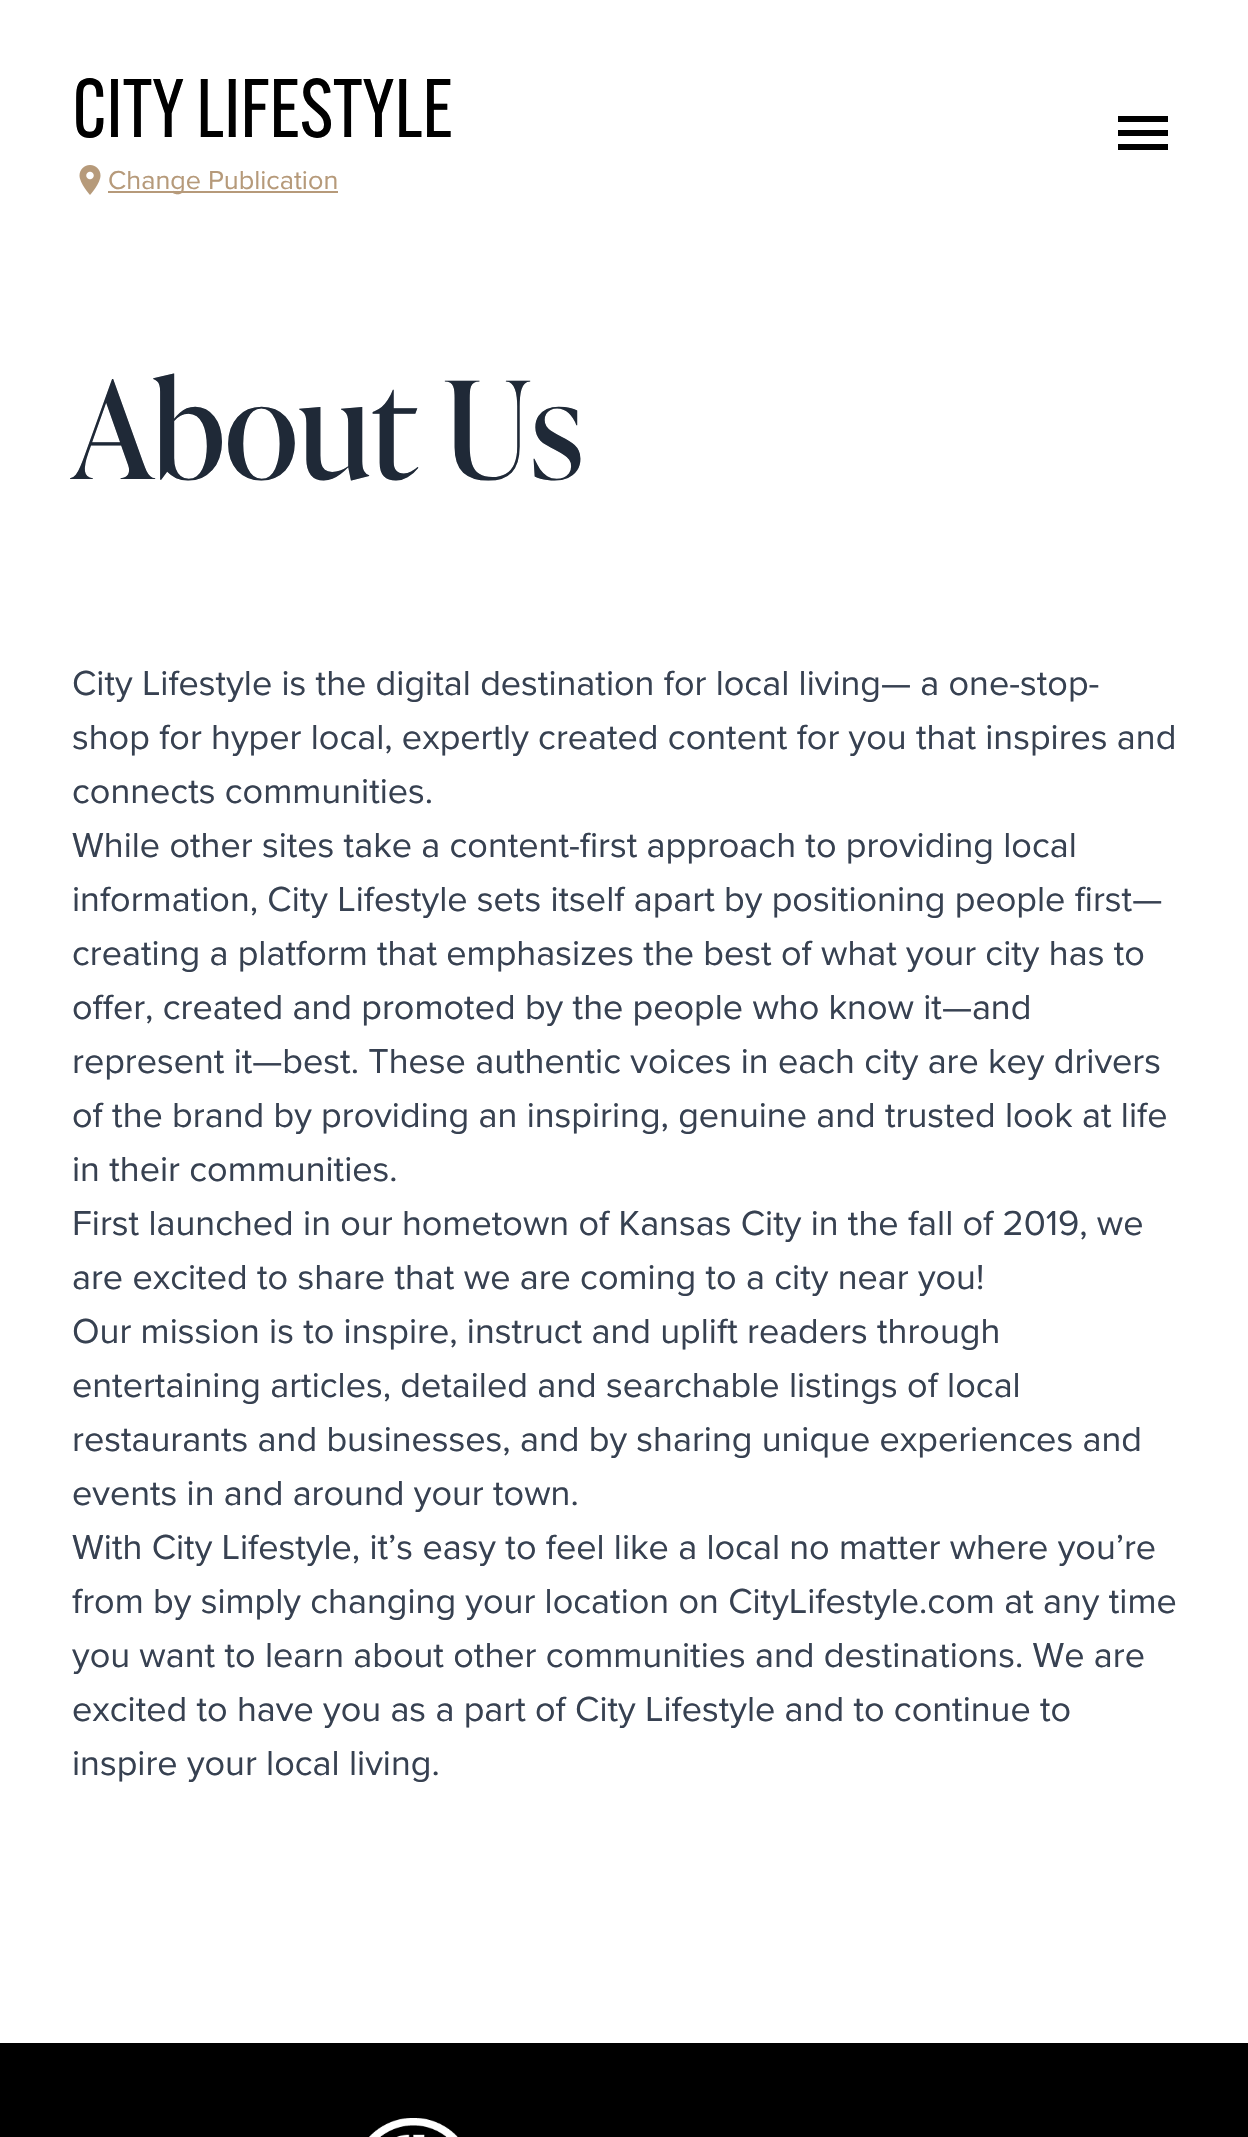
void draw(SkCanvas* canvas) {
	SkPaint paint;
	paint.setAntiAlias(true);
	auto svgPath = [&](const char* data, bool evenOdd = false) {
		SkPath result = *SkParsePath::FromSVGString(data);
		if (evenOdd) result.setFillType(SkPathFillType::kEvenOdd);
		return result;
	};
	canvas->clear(0xffffffff);
	SkFont f1(fontMgr->matchFamilyStyle("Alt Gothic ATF", SkFontStyle::Normal()), 81);
	f1.setSubpixel(true);
	paint.setColor(0xff000000);
	canvas->drawString("CITY LIFESTYLE", 72, 137, f1, paint);
	canvas->drawImageRect(SkImages::DeferredFromEncodedData(SkData::MakeFromFileName("img1.png")), SkRect::MakeXYWH(79, 165, 22, 30), SkSamplingOptions());
	paint.setColor(0xffb69a7a);
	canvas->drawRect(SkRect::MakeXYWH(108, 191, 230, 2), paint);
	SkFont f2(fontMgr->matchFamilyStyle("Proxima Nova", SkFontStyle::Normal()), 27);
	f2.setSubpixel(true);
	canvas->drawString("Change Publication", 108, 189, f2, paint);
	paint.setColor(0xff000000);
	canvas->drawPath(svgPath("M1118 116H1168V122H1118ZM1118 130H1168V136H1118ZM1118 144H1168V150H1118Z"), paint);
	SkFont f3(fontMgr->matchFamilyStyle("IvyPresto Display", SkFontStyle::Normal()), 135);
	f3.setSubpixel(true);
	paint.setColor(0xff1f2937);
	canvas->drawString("About Us", 72, 479, f3, paint);
	SkFont f4(fontMgr->matchFamilyStyle("Proxima Nova", SkFontStyle::Normal()), 36);
	f4.setSubpixel(true);
	paint.setColor(0xff374151);
	canvas->drawString("City Lifestyle is the digital destination for local living— a one-stop-", 72, 695, f4, paint);
	canvas->drawString("shop for hyper local, expertly created content for you that inspires and", 72, 749, f4, paint);
	canvas->drawString("connects communities.", 72, 803, f4, paint);
	canvas->drawString("While other sites take a content-first approach to providing local", 72, 857, f4, paint);
	canvas->drawString("information, City Lifestyle sets itself apart by positioning people first—", 72, 911, f4, paint);
	canvas->drawString("creating a platform that emphasizes the best of what your city has to", 72, 965, f4, paint);
	canvas->drawString("offer, created and promoted by the people who know it—and", 72, 1019, f4, paint);
	canvas->drawString("represent it—best. These authentic voices in each city are key drivers", 72, 1073, f4, paint);
	canvas->drawString("of the brand by providing an inspiring, genuine and trusted look at life", 72, 1127, f4, paint);
	canvas->drawString("in their communities.", 72, 1181, f4, paint);
	canvas->drawString("First launched in our hometown of Kansas City in the fall of 2019, we", 72, 1235, f4, paint);
	canvas->drawString("are excited to share that we are coming to a city near you!", 72, 1289, f4, paint);
	canvas->drawString("Our mission is to inspire, instruct and uplift readers through", 72, 1343, f4, paint);
	canvas->drawString("entertaining articles, detailed and searchable listings of local", 72, 1397, f4, paint);
	canvas->drawString("restaurants and businesses, and by sharing unique experiences and", 72, 1451, f4, paint);
	canvas->drawString("events in and around your town.", 72, 1505, f4, paint);
	canvas->drawString("With City Lifestyle, it’s easy to feel like a local no matter where you’re", 72, 1559, f4, paint);
	canvas->drawString("from by simply changing your location on CityLifestyle.com at any time", 72, 1613, f4, paint);
	canvas->drawString("you want to learn about other communities and destinations. We are", 72, 1667, f4, paint);
	canvas->drawString("excited to have you as a part of City Lifestyle and to continue to", 72, 1721, f4, paint);
	canvas->drawString("inspire your local living.", 72, 1775, f4, paint);
	paint.setColor(0xff000000);
	canvas->drawRect(SkRect::MakeXYWH(0, 2043, 1248, 94), paint);
	canvas->drawImageRect(SkImages::DeferredFromEncodedData(SkData::MakeFromFileName("img2.png")), SkRect::MakeXYWH(369, 2118, 89, 19), SkSamplingOptions());
}
